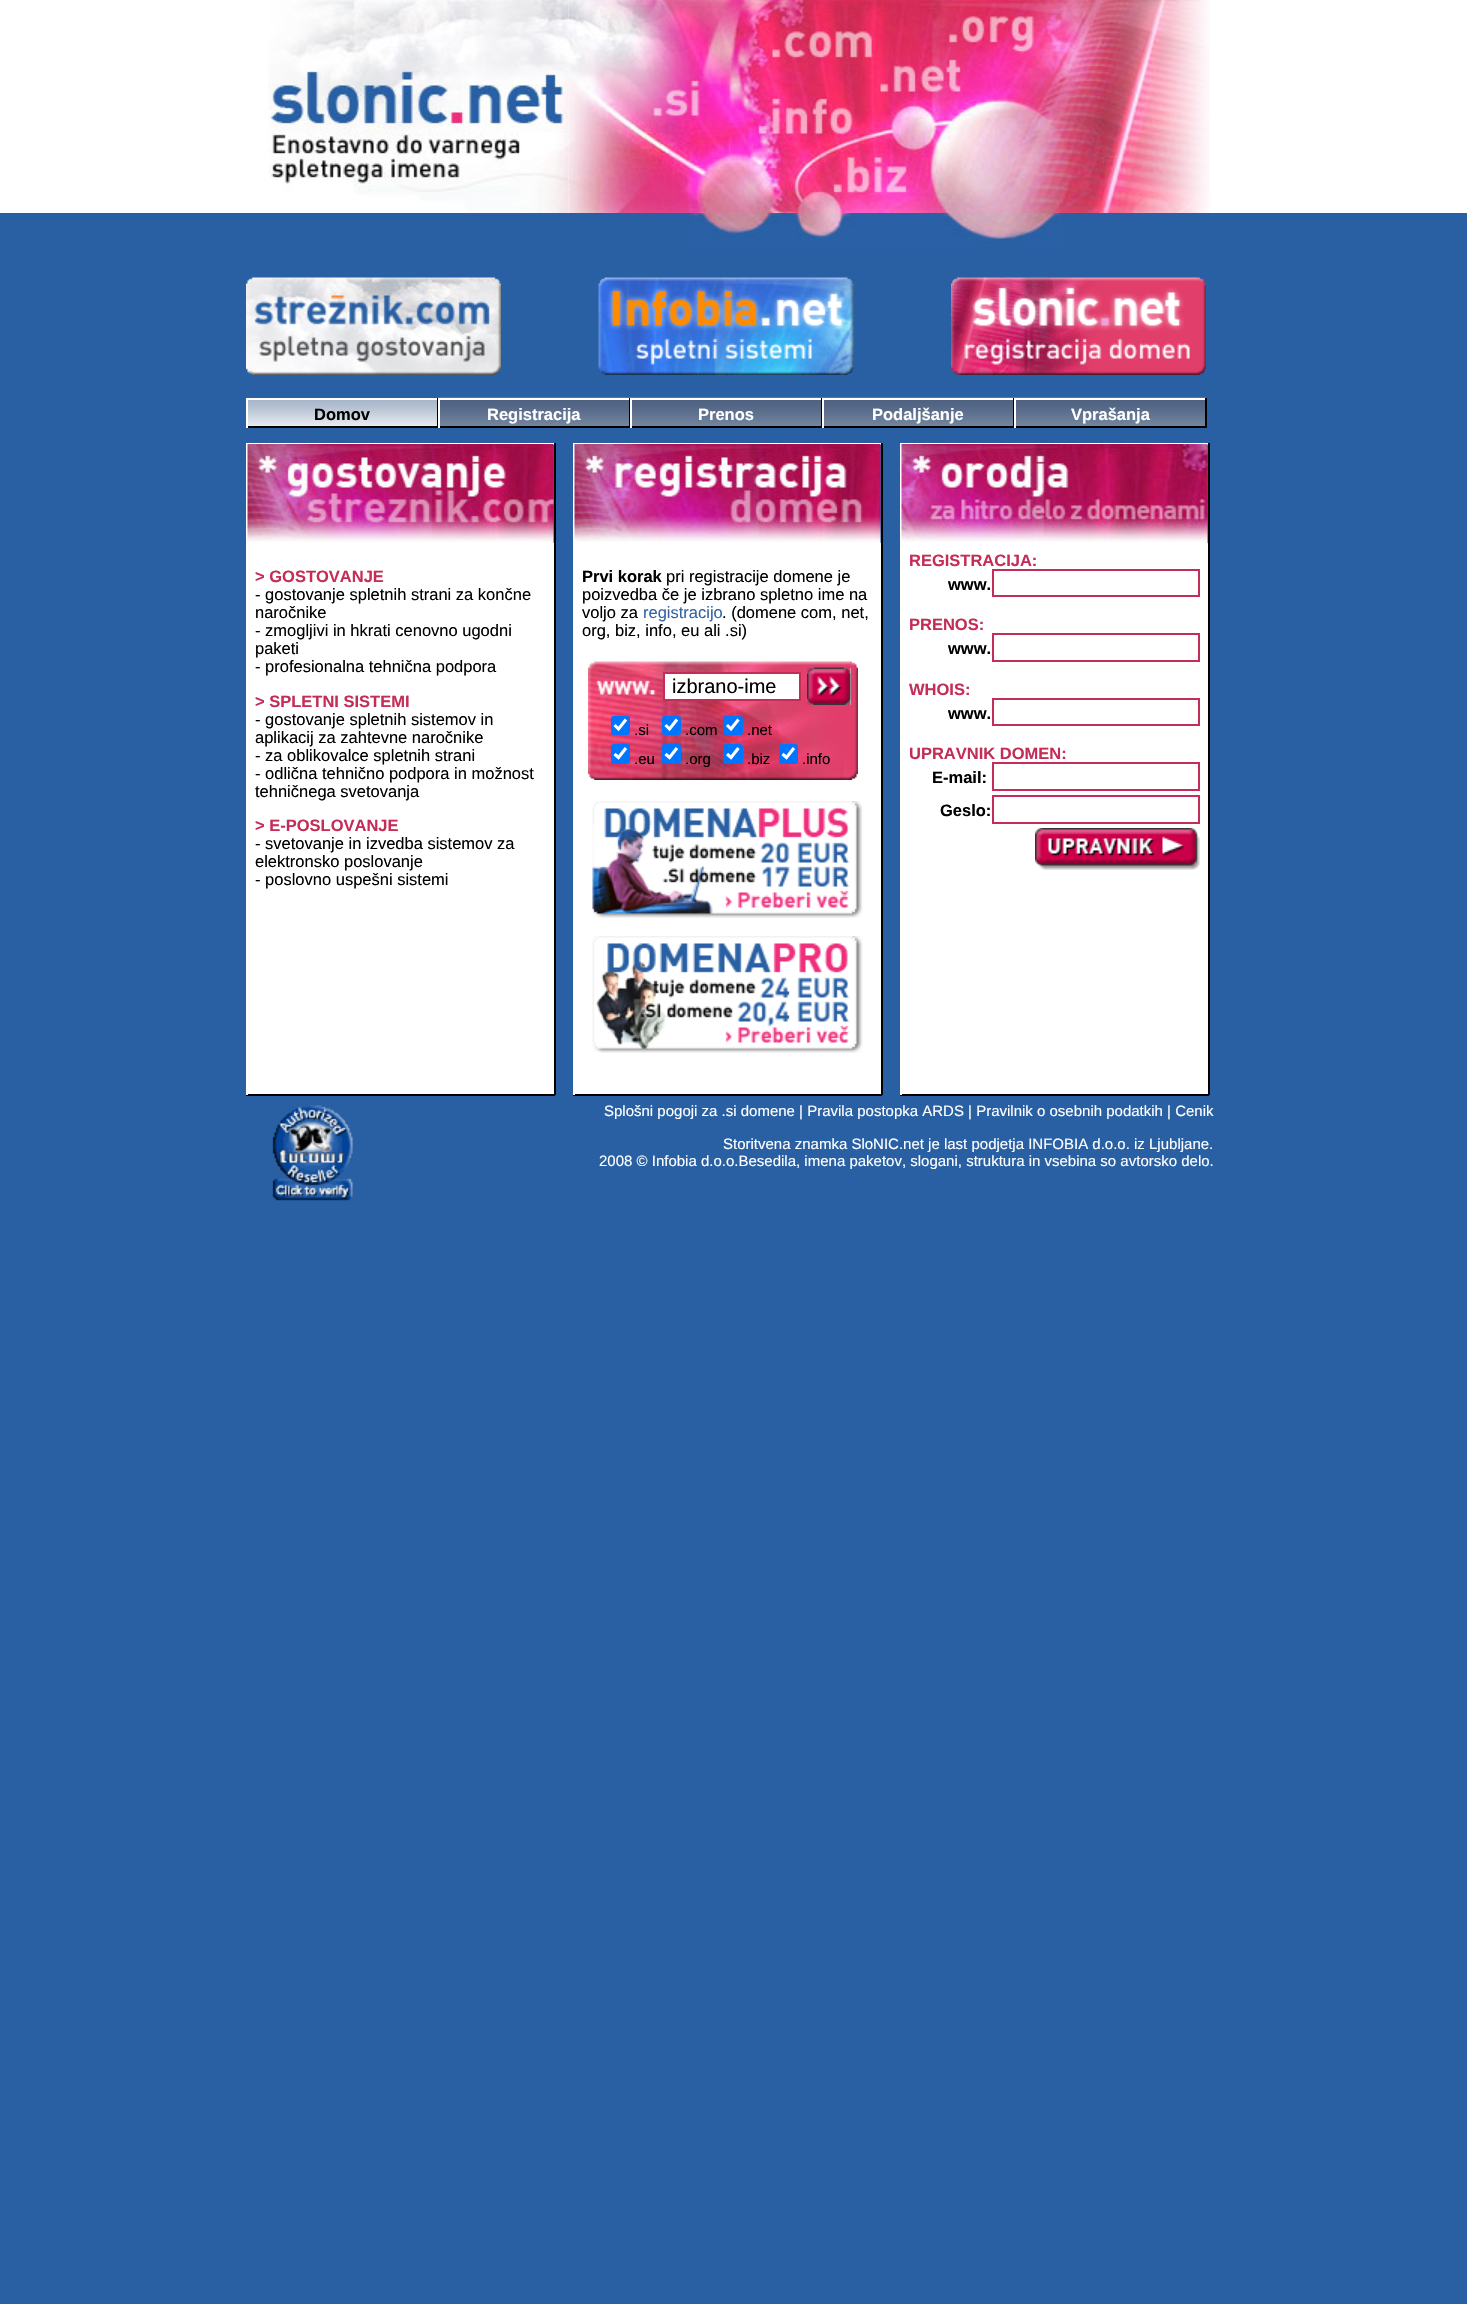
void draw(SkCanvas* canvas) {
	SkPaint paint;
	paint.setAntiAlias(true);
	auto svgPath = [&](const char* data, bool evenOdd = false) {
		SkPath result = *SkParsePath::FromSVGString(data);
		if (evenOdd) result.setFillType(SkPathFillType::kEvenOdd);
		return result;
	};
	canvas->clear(0xff2960a4);
	paint.setColor(0xffffffff);
	canvas->drawRect(SkRect::MakeXYWH(0, 0, 1467, 213), paint);
	canvas->drawImageRect(SkImages::DeferredFromEncodedData(SkData::MakeFromFileName("img1.png")), SkRect::MakeXYWH(268, 0, 301, 213), SkSamplingOptions());
	canvas->drawImageRect(SkImages::DeferredFromEncodedData(SkData::MakeFromFileName("img2.png")), SkRect::MakeXYWH(568, 0, 642, 213), SkSamplingOptions());
	canvas->drawImageRect(SkImages::DeferredFromEncodedData(SkData::MakeFromFileName("img3.png")), SkRect::MakeXYWH(689, 213, 375, 36), SkSamplingOptions());
	canvas->drawImageRect(SkImages::DeferredFromEncodedData(SkData::MakeFromFileName("img4.png")), SkRect::MakeXYWH(246, 277, 255, 98), SkSamplingOptions());
	canvas->drawImageRect(SkImages::DeferredFromEncodedData(SkData::MakeFromFileName("img5.png")), SkRect::MakeXYWH(598, 277, 256, 98), SkSamplingOptions());
	canvas->drawImageRect(SkImages::DeferredFromEncodedData(SkData::MakeFromFileName("img6.png")), SkRect::MakeXYWH(951, 277, 255, 98), SkSamplingOptions());
	canvas->drawImageRect(SkImages::DeferredFromEncodedData(SkData::MakeFromFileName("img7.png")), SkRect::MakeXYWH(248, 400, 189, 26), SkSamplingOptions());
	canvas->drawRect(SkRect::MakeXYWH(246, 398, 192, 2), paint);
	paint.setColor(0xff000000);
	canvas->drawRect(SkRect::MakeXYWH(437, 398, 1, 30), paint);
	canvas->drawRect(SkRect::MakeXYWH(246, 426, 192, 2), paint);
	paint.setColor(0xffffffff);
	canvas->drawRect(SkRect::MakeXYWH(246, 398, 2, 30), paint);
	SkFont f1(fontMgr->matchFamilyStyle("Liberation Sans", SkFontStyle::Bold()), 16.5);
	f1.setSubpixel(true);
	paint.setColor(0xff000000);
	canvas->drawString("Domov", 314, 420, f1, paint);
	canvas->drawImageRect(SkImages::DeferredFromEncodedData(SkData::MakeFromFileName("img8.png")), SkRect::MakeXYWH(438, 397, 192, 29), SkSamplingOptions());
	paint.setColor(0xffffffff);
	canvas->drawRect(SkRect::MakeXYWH(438, 398, 192, 2), paint);
	paint.setColor(0xff000000);
	canvas->drawRect(SkRect::MakeXYWH(629, 398, 1, 30), paint);
	canvas->drawRect(SkRect::MakeXYWH(438, 426, 192, 2), paint);
	paint.setColor(0xffffffff);
	canvas->drawRect(SkRect::MakeXYWH(438, 398, 2, 30), paint);
	canvas->drawString("Registracija", 487, 420, f1, paint);
	canvas->drawImageRect(SkImages::DeferredFromEncodedData(SkData::MakeFromFileName("img8.png")), SkRect::MakeXYWH(630, 397, 192, 29), SkSamplingOptions());
	canvas->drawRect(SkRect::MakeXYWH(630, 398, 192, 2), paint);
	paint.setColor(0xff000000);
	canvas->drawRect(SkRect::MakeXYWH(821, 398, 1, 30), paint);
	canvas->drawRect(SkRect::MakeXYWH(630, 426, 192, 2), paint);
	paint.setColor(0xffffffff);
	canvas->drawRect(SkRect::MakeXYWH(630, 398, 2, 30), paint);
	canvas->drawString("Prenos", 698, 420, f1, paint);
	canvas->drawImageRect(SkImages::DeferredFromEncodedData(SkData::MakeFromFileName("img8.png")), SkRect::MakeXYWH(822, 397, 192, 29), SkSamplingOptions());
	canvas->drawRect(SkRect::MakeXYWH(822, 398, 192, 2), paint);
	paint.setColor(0xff000000);
	canvas->drawRect(SkRect::MakeXYWH(1013, 398, 1, 30), paint);
	canvas->drawRect(SkRect::MakeXYWH(822, 426, 192, 2), paint);
	paint.setColor(0xffffffff);
	canvas->drawRect(SkRect::MakeXYWH(822, 398, 2, 30), paint);
	canvas->drawString("Podaljšanje", 872, 420, f1, paint);
	canvas->drawImageRect(SkImages::DeferredFromEncodedData(SkData::MakeFromFileName("img8.png")), SkRect::MakeXYWH(1014, 397, 192, 29), SkSamplingOptions());
	canvas->drawRect(SkRect::MakeXYWH(1014, 398, 192, 2), paint);
	paint.setColor(0xff000000);
	canvas->drawRect(SkRect::MakeXYWH(1205, 398, 2, 30), paint);
	canvas->drawRect(SkRect::MakeXYWH(1014, 426, 192, 2), paint);
	paint.setColor(0xffffffff);
	canvas->drawRect(SkRect::MakeXYWH(1014, 398, 2, 30), paint);
	canvas->drawString("Vprašanja", 1071, 420, f1, paint);
	canvas->drawRect(SkRect::MakeXYWH(246, 443, 309, 2), paint);
	paint.setColor(0xff000000);
	canvas->drawRect(SkRect::MakeXYWH(554, 443, 2, 652), paint);
	canvas->drawRect(SkRect::MakeXYWH(246, 1094, 309, 2), paint);
	paint.setColor(0xffffffff);
	canvas->drawRect(SkRect::MakeXYWH(246, 443, 2, 652), paint);
	canvas->drawImageRect(SkImages::DeferredFromEncodedData(SkData::MakeFromFileName("img9.png")), SkRect::MakeXYWH(247, 444, 307, 99), SkSamplingOptions());
	canvas->drawRect(SkRect::MakeXYWH(248, 543, 306, 551), paint);
	paint.setColor(0xffc42d57);
	canvas->drawString("> GOSTOVANJE", 255, 582, f1, paint);
	SkFont f2(fontMgr->matchFamilyStyle("Liberation Sans", SkFontStyle::Normal()), 16.5);
	f2.setSubpixel(true);
	paint.setColor(0xff000000);
	canvas->drawString("- gostovanje spletnih strani za končne", 255, 600, f2, paint);
	canvas->drawString("naročnike", 255, 618, f2, paint);
	canvas->drawString("- zmogljivi in hkrati cenovno ugodni", 255, 636, f2, paint);
	canvas->drawString("paketi", 255, 654, f2, paint);
	canvas->drawString("- profesionalna tehnična podpora", 255, 672, f2, paint);
	paint.setColor(0xffc42d57);
	canvas->drawString("> SPLETNI SISTEMI", 255, 707, f1, paint);
	paint.setColor(0xff000000);
	canvas->drawString("- gostovanje spletnih sistemov in", 255, 725, f2, paint);
	canvas->drawString("aplikacij za zahtevne naročnike", 255, 743, f2, paint);
	canvas->drawString("- za oblikovalce spletnih strani", 255, 761, f2, paint);
	canvas->drawString("- odlična tehnično podpora in možnost", 255, 779, f2, paint);
	canvas->drawString("tehničnega svetovanja", 255, 797, f2, paint);
	paint.setColor(0xffc42d57);
	canvas->drawString("> E-POSLOVANJE", 255, 831, f1, paint);
	paint.setColor(0xff000000);
	canvas->drawString("- svetovanje in izvedba sistemov za", 255, 849, f2, paint);
	canvas->drawString("elektronsko poslovanje", 255, 867, f2, paint);
	canvas->drawString("- poslovno uspešni sistemi", 255, 885, f2, paint);
	paint.setColor(0xffffffff);
	canvas->drawRect(SkRect::MakeXYWH(573, 443, 309, 2), paint);
	paint.setColor(0xff000000);
	canvas->drawRect(SkRect::MakeXYWH(881, 443, 2, 652), paint);
	canvas->drawRect(SkRect::MakeXYWH(573, 1094, 309, 2), paint);
	paint.setColor(0xffffffff);
	canvas->drawRect(SkRect::MakeXYWH(573, 443, 2, 652), paint);
	canvas->drawImageRect(SkImages::DeferredFromEncodedData(SkData::MakeFromFileName("img10.png")), SkRect::MakeXYWH(574, 444, 307, 99), SkSamplingOptions());
	canvas->drawRect(SkRect::MakeXYWH(575, 543, 306, 551), paint);
	paint.setColor(0xff000000);
	canvas->drawString("Prvi korak", 582, 582, f1, paint);
	canvas->drawString("pri registracije domene je", 666, 582, f2, paint);
	canvas->drawString("poizvedba če je izbrano spletno ime na", 582, 600, f2, paint);
	canvas->drawString("voljo za", 582, 618, f2, paint);
	paint.setColor(0xff3365a3);
	canvas->drawString("registracijo", 643, 618, f2, paint);
	paint.setColor(0xff000000);
	canvas->drawString(". (domene com, net,", 722, 618, f2, paint);
	canvas->drawString("org, biz, info, eu ali .si)", 582, 636, f2, paint);
	canvas->drawImageRect(SkImages::DeferredFromEncodedData(SkData::MakeFromFileName("img11.png")), SkRect::MakeXYWH(588, 661, 270, 119), SkSamplingOptions());
	paint.setColor(0xffffffff);
	canvas->drawRect(SkRect::MakeXYWH(664, 673, 136, 27), paint);
	paint.setStroke(true);
	paint.setStrokeWidth(2);
	paint.setColor(0xffc42d57);
	canvas->drawRect(SkRect::MakeXYWH(664, 673, 136, 27), paint);
	SkFont f3(fontMgr->matchFamilyStyle("Liberation Sans", SkFontStyle::Normal()), 20);
	f3.setSubpixel(true);
	paint.setStroke(false);
	paint.setColor(0xff000000);
	canvas->drawString("izbrano-ime", 672, 693, f3, paint);
	paint.setColor(0xffefefef);
	canvas->drawRect(SkRect::MakeXYWH(850, 668, 1, 37), paint);
	canvas->drawImageRect(SkImages::DeferredFromEncodedData(SkData::MakeFromFileName("img12.png")), SkRect::MakeXYWH(807, 667, 44, 38), SkSamplingOptions());
	paint.setColor(0xff0075ff);
	canvas->drawRoundRect(SkRect::MakeXYWH(611, 716, 19, 19), 3, 3, paint);
	paint.setStroke(true);
	paint.setStrokeWidth(3.1);
	paint.setColor(0xffffffff);
	canvas->drawPath(svgPath("M614.5 725L618.5 729L626 719.5"), paint);
	SkFont f4(fontMgr->matchFamilyStyle("Liberation Sans", SkFontStyle::Normal()), 15);
	f4.setSubpixel(true);
	paint.setStroke(false);
	paint.setColor(0xff000000);
	canvas->drawString(".si", 634, 735, f4, paint);
	paint.setColor(0xff0075ff);
	canvas->drawRoundRect(SkRect::MakeXYWH(662, 716, 19, 19), 3, 3, paint);
	paint.setStroke(true);
	paint.setColor(0xffffffff);
	canvas->drawPath(svgPath("M665.5 725L669.5 729L677 719.5"), paint);
	paint.setStroke(false);
	paint.setColor(0xff000000);
	canvas->drawString(".com", 685, 735, f4, paint);
	paint.setColor(0xff0075ff);
	canvas->drawRoundRect(SkRect::MakeXYWH(723, 716, 20, 19), 3, 3, paint);
	paint.setStroke(true);
	paint.setColor(0xffffffff);
	canvas->drawPath(svgPath("M727 725L731 729L738.5 719.5"), paint);
	paint.setStroke(false);
	paint.setColor(0xff000000);
	canvas->drawString(".net", 747, 735, f4, paint);
	paint.setColor(0xff0075ff);
	canvas->drawRoundRect(SkRect::MakeXYWH(611, 744, 19, 20), 3, 3, paint);
	paint.setStroke(true);
	paint.setColor(0xffffffff);
	canvas->drawPath(svgPath("M614.5 754L618.5 757.5L626 748"), paint);
	paint.setStroke(false);
	paint.setColor(0xff000000);
	canvas->drawString(".eu", 634, 764, f4, paint);
	paint.setColor(0xff0075ff);
	canvas->drawRoundRect(SkRect::MakeXYWH(662, 744, 19, 20), 3, 3, paint);
	paint.setStroke(true);
	paint.setColor(0xffffffff);
	canvas->drawPath(svgPath("M665.5 754L669.5 757.5L677 748"), paint);
	paint.setStroke(false);
	paint.setColor(0xff000000);
	canvas->drawString(".org", 685, 764, f4, paint);
	paint.setColor(0xff0075ff);
	canvas->drawRoundRect(SkRect::MakeXYWH(723, 744, 20, 20), 3, 3, paint);
	paint.setStroke(true);
	paint.setColor(0xffffffff);
	canvas->drawPath(svgPath("M727 754L731 757.5L738.5 748"), paint);
	paint.setStroke(false);
	paint.setColor(0xff000000);
	canvas->drawString(".biz", 747, 764, f4, paint);
	paint.setColor(0xff0075ff);
	canvas->drawRoundRect(SkRect::MakeXYWH(779, 744, 19, 20), 3, 3, paint);
	paint.setStroke(true);
	paint.setColor(0xffffffff);
	canvas->drawPath(svgPath("M782.5 754L786.5 757.5L794 748"), paint);
	paint.setStroke(false);
	paint.setColor(0xff000000);
	canvas->drawString(".info", 802, 764, f4, paint);
	canvas->drawImageRect(SkImages::DeferredFromEncodedData(SkData::MakeFromFileName("img13.png")), SkRect::MakeXYWH(592, 801, 271, 117), SkSamplingOptions());
	canvas->drawImageRect(SkImages::DeferredFromEncodedData(SkData::MakeFromFileName("img14.png")), SkRect::MakeXYWH(592, 936, 271, 117), SkSamplingOptions());
	paint.setColor(0xffffffff);
	canvas->drawRect(SkRect::MakeXYWH(900, 443, 309, 2), paint);
	paint.setColor(0xff000000);
	canvas->drawRect(SkRect::MakeXYWH(1208, 443, 2, 652), paint);
	canvas->drawRect(SkRect::MakeXYWH(900, 1094, 309, 2), paint);
	paint.setColor(0xffffffff);
	canvas->drawRect(SkRect::MakeXYWH(900, 443, 2, 652), paint);
	canvas->drawImageRect(SkImages::DeferredFromEncodedData(SkData::MakeFromFileName("img15.png")), SkRect::MakeXYWH(901, 444, 307, 99), SkSamplingOptions());
	canvas->drawRect(SkRect::MakeXYWH(902, 543, 306, 551), paint);
	paint.setColor(0xffc42d57);
	canvas->drawString("REGISTRACIJA:", 909, 566, f1, paint);
	paint.setColor(0xff000000);
	canvas->drawString("www.", 948, 590, f1, paint);
	paint.setStroke(true);
	paint.setStrokeWidth(2);
	paint.setColor(0xffc42d57);
	canvas->drawRect(SkRect::MakeXYWH(993, 570, 206, 26), paint);
	paint.setStroke(false);
	canvas->drawString("PRENOS:", 909, 630, f1, paint);
	paint.setColor(0xff000000);
	canvas->drawString("www.", 948, 654, f1, paint);
	paint.setStroke(true);
	paint.setColor(0xffc42d57);
	canvas->drawRect(SkRect::MakeXYWH(993, 634, 206, 27), paint);
	paint.setStroke(false);
	canvas->drawString("WHOIS:", 909, 695, f1, paint);
	paint.setColor(0xff000000);
	canvas->drawString("www.", 948, 719, f1, paint);
	paint.setStroke(true);
	paint.setColor(0xffc42d57);
	canvas->drawRect(SkRect::MakeXYWH(993, 699, 206, 26), paint);
	paint.setStroke(false);
	canvas->drawString("UPRAVNIK DOMEN:", 909, 759, f1, paint);
	paint.setColor(0xff000000);
	canvas->drawString("E-mail:", 932, 783, f1, paint);
	paint.setStroke(true);
	paint.setColor(0xffc42d57);
	canvas->drawRect(SkRect::MakeXYWH(993, 763, 206, 27), paint);
	paint.setStroke(false);
	paint.setColor(0xff000000);
	canvas->drawString("Geslo:", 940, 816, f1, paint);
	paint.setStroke(true);
	paint.setColor(0xffc42d57);
	canvas->drawRect(SkRect::MakeXYWH(993, 796, 206, 27), paint);
	canvas->drawImageRect(SkImages::DeferredFromEncodedData(SkData::MakeFromFileName("img16.png")), SkRect::MakeXYWH(1035, 828, 165, 42), SkSamplingOptions());
	canvas->drawImageRect(SkImages::DeferredFromEncodedData(SkData::MakeFromFileName("img17.png")), SkRect::MakeXYWH(272, 1105, 81, 96), SkSamplingOptions());
	paint.setStroke(false);
	paint.setColor(0xffffffff);
	canvas->drawString("Splošni pogoji za .si domene | Pravila postopka ARDS | Pravilnik o osebnih podatkih | Cenik", 604, 1116, f4, paint);
	canvas->drawString("Storitvena znamka SloNIC.net je last podjetja INFOBIA d.o.o. iz Ljubljane.", 723, 1149, f4, paint);
	canvas->drawString("2008 © Infobia d.o.o.Besedila, imena paketov, slogani, struktura in vsebina so avtorsko delo.", 599, 1166, f4, paint);
}
